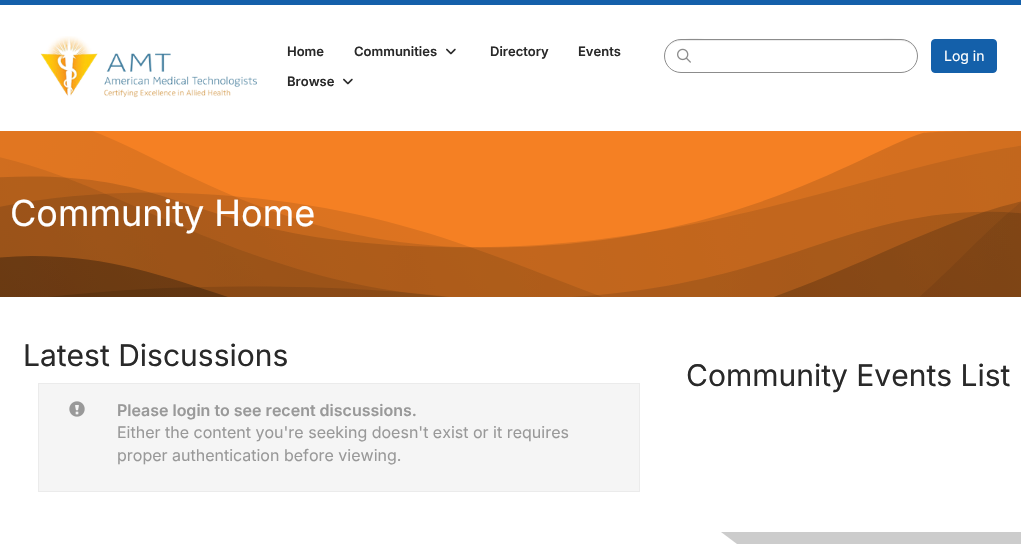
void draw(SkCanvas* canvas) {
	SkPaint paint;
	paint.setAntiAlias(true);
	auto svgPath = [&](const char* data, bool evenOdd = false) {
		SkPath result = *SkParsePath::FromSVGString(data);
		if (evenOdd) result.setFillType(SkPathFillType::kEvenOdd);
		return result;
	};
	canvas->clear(0xffffffff);
	paint.setColor(0xff1460aa);
	canvas->drawRect(SkRect::MakeXYWH(0, 0, 1021, 5), paint);
	canvas->drawImageRect(SkImages::DeferredFromEncodedData(SkData::MakeFromFileName("img1.png")), SkRect::MakeXYWH(40, 36, 217, 62), SkSamplingOptions());
	SkFont f1(fontMgr->matchFamilyStyle("Inter", SkFontStyle(600, SkFontStyle::kNormal_Width, SkFontStyle::kUpright_Slant)), 13);
	f1.setSubpixel(true);
	paint.setColor(0xff292929);
	canvas->drawString("Home", 287, 56, f1, paint);
	canvas->drawString("Communities", 354, 56, f1, paint);
	canvas->drawImageRect(SkImages::DeferredFromEncodedData(SkData::MakeFromFileName("img2.png")), SkRect::MakeXYWH(446, 48, 10, 7), SkSamplingOptions());
	canvas->drawString("Directory", 490, 56, f1, paint);
	canvas->drawString("Events", 578, 56, f1, paint);
	canvas->drawString("Browse", 287, 86, f1, paint);
	canvas->drawImageRect(SkImages::DeferredFromEncodedData(SkData::MakeFromFileName("img2.png")), SkRect::MakeXYWH(343, 78, 10, 7), SkSamplingOptions());
	paint.setColor(0xffececec);
	canvas->drawPath(svgPath("M681 41H901C910 41 917 48 917 56C918 31 874 40 864 40H718C708 40 664 31 665 56C665 48 672 41 681 41Z"), paint);
	paint.setStroke(true);
	paint.setStrokeWidth(1);
	paint.setColor(0xff8c8c8c);
	canvas->drawRoundRect(SkRect::MakeXYWH(664.5, 39.5, 253, 33), 16.5, 16.5, paint);
	canvas->drawImageRect(SkImages::DeferredFromEncodedData(SkData::MakeFromFileName("img3.png")), SkRect::MakeXYWH(677, 48, 14, 15), SkSamplingOptions());
	paint.setStroke(false);
	paint.setColor(0xff1460aa);
	canvas->drawRoundRect(SkRect::MakeXYWH(931.5, 39.5, 65, 33), 3.5, 3.5, paint);
	paint.setStroke(true);
	canvas->drawRoundRect(SkRect::MakeXYWH(931.5, 39.5, 65, 33), 3.5, 3.5, paint);
	SkFont f2(fontMgr->matchFamilyStyle("Inter", SkFontStyle::Normal()), 14);
	f2.setSubpixel(true);
	paint.setStroke(false);
	paint.setColor(0xffffffff);
	canvas->drawString("Log in", 944, 61, f2, paint);
	canvas->drawImageRect(SkImages::DeferredFromEncodedData(SkData::MakeFromFileName("img4.png")), SkRect::MakeXYWH(0, 131, 1021, 166), SkSamplingOptions());
	SkFont f3(fontMgr->matchFamilyStyle("Inter", SkFontStyle::Normal()), 36);
	f3.setSubpixel(true);
	canvas->drawString("Community Home", 10, 226, f3, paint);
	SkFont f4(fontMgr->matchFamilyStyle("Inter", SkFontStyle::Normal()), 30);
	f4.setSubpixel(true);
	paint.setColor(0xff292929);
	canvas->drawString("Latest Discussions", 23, 366, f4, paint);
	paint.setColor(0xfff5f5f5);
	canvas->drawRect(SkRect::MakeXYWH(38.5, 383.5, 601, 108), paint);
	paint.setStroke(true);
	paint.setColor(0xffebebeb);
	canvas->drawRect(SkRect::MakeXYWH(38.5, 383.5, 601, 108), paint);
	canvas->drawImageRect(SkImages::DeferredFromEncodedData(SkData::MakeFromFileName("img5.png")), SkRect::MakeXYWH(69, 401, 16, 16), SkSamplingOptions());
	SkFont f5(fontMgr->matchFamilyStyle("Inter", SkFontStyle(600, SkFontStyle::kNormal_Width, SkFontStyle::kUpright_Slant)), 16);
	f5.setSubpixel(true);
	paint.setStroke(false);
	paint.setColor(0xff999999);
	canvas->drawString("Please login to see recent discussions.", 117, 416, f5, paint);
	SkFont f6(fontMgr->matchFamilyStyle("Inter", SkFontStyle::Normal()), 16);
	f6.setSubpixel(true);
	canvas->drawString("Either the content you're seeking doesn't exist or it requires", 117, 438, f6, paint);
	canvas->drawString("proper authentication before viewing.", 117, 461, f6, paint);
	paint.setColor(0xff292929);
	canvas->drawString("Community Events List", 686, 386, f4, paint);
	paint.setColor(0xffcccccc);
	canvas->drawPath(svgPath("M1021 532V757L721 532Z"), paint);
}
